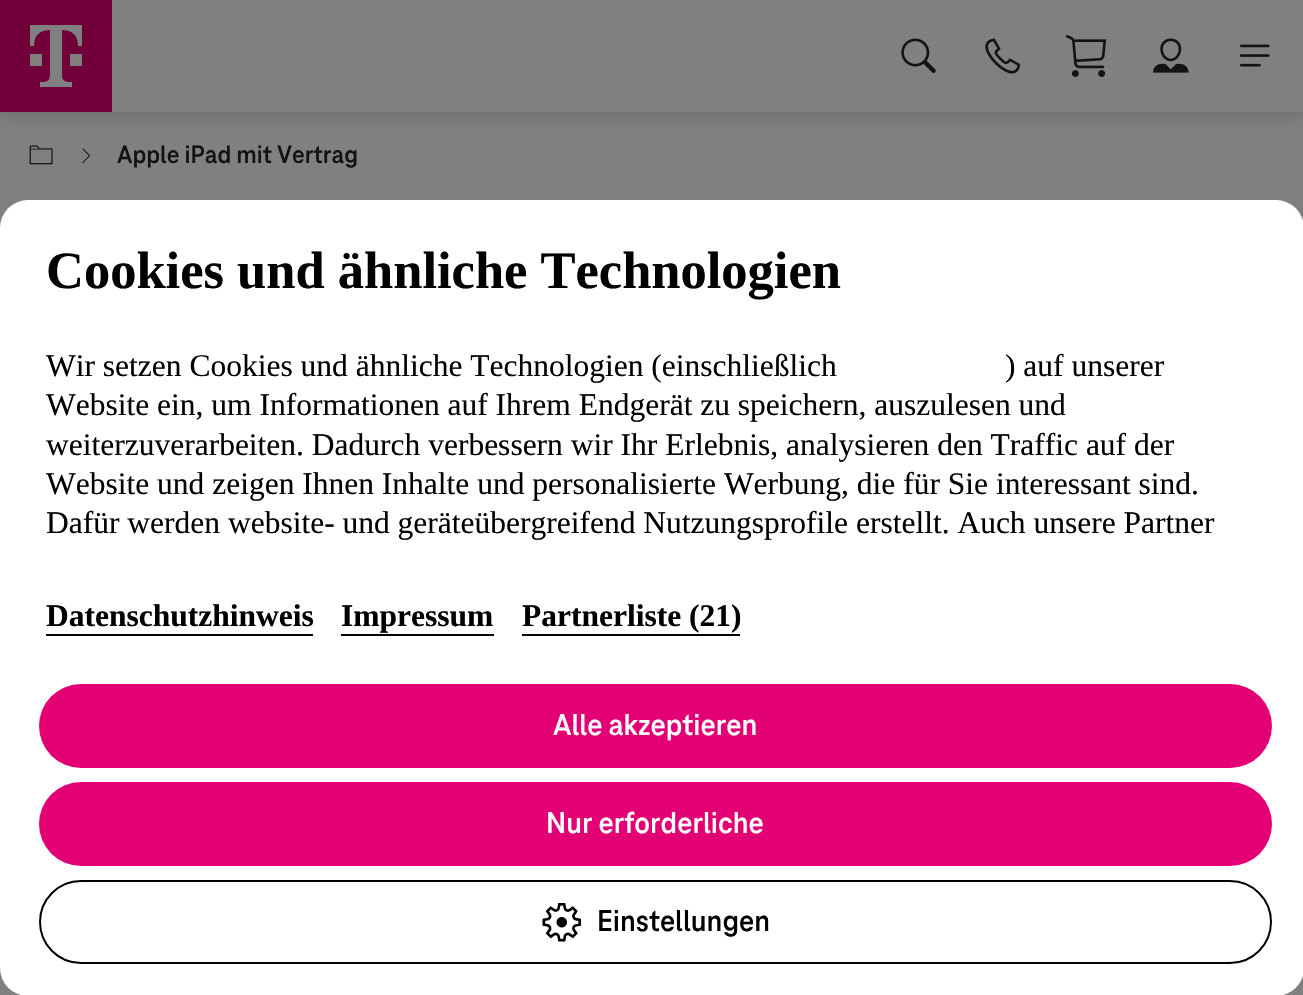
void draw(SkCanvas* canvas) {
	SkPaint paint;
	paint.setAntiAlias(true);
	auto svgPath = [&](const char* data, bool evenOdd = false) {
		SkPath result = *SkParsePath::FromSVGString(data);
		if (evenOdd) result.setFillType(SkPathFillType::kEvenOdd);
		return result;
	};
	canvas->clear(0xff808080);
	paint.setColor(0x26000000);
	paint.setMaskFilter(SkMaskFilter::MakeBlur(kNormal_SkBlurStyle, 8));
	canvas->drawRect(SkRect::MakeXYWH(0, 4, 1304, 112), paint);
	paint.setMaskFilter(nullptr);
	paint.setColor(0xff808080);
	canvas->drawRect(SkRect::MakeXYWH(112, 0, 1191, 112), paint);
	paint.setColor(0xff71003a);
	canvas->drawRect(SkRect::MakeXYWH(0, 0, 112, 112), paint);
	paint.setColor(0xff808080);
	canvas->drawPath(svgPath("M42 66H30V54H42ZM30 25V46H34C34 35 40 30 50 30V74C50 80 48 82 42 82H40V87H72V82H70C64 82 62 80 62 74V30C72 30 78 35 78 46H82V25ZM70 66H82V54H70Z"), paint);
	canvas->drawImageRect(SkImages::DeferredFromEncodedData(SkData::MakeFromFileName("img1.png")), SkRect::MakeXYWH(901, 38, 35, 35), SkSamplingOptions());
	canvas->drawImageRect(SkImages::DeferredFromEncodedData(SkData::MakeFromFileName("img2.png")), SkRect::MakeXYWH(985, 38, 36, 36), SkSamplingOptions());
	canvas->drawImageRect(SkImages::DeferredFromEncodedData(SkData::MakeFromFileName("img3.png")), SkRect::MakeXYWH(1066, 35, 41, 42), SkSamplingOptions());
	canvas->drawImageRect(SkImages::DeferredFromEncodedData(SkData::MakeFromFileName("img4.png")), SkRect::MakeXYWH(1152, 38, 37, 35), SkSamplingOptions());
	canvas->drawImageRect(SkImages::DeferredFromEncodedData(SkData::MakeFromFileName("img5.png")), SkRect::MakeXYWH(1239, 44, 31, 23), SkSamplingOptions());
	canvas->drawImageRect(SkImages::DeferredFromEncodedData(SkData::MakeFromFileName("img6.png")), SkRect::MakeXYWH(29, 145, 24, 20), SkSamplingOptions());
	canvas->drawImageRect(SkImages::DeferredFromEncodedData(SkData::MakeFromFileName("img7.png")), SkRect::MakeXYWH(82, 148, 9, 16), SkSamplingOptions());
	SkFont f1(fontMgr->matchFamilyStyle("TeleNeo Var", SkFontStyle::Bold()), 26.25);
	f1.setSubpixel(true);
	paint.setColor(0xff131313);
	canvas->drawString("Apple iPad mit Vertrag", 117, 163, f1, paint);
	paint.setColor(0xffffffff);
	canvas->drawRoundRect(SkRect::MakeXYWH(0, 200, 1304, 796), 28, 28, paint);
	SkFont f2(fontMgr->matchFamilyStyle("Liberation Serif", SkFontStyle::Bold()), 52.5);
	f2.setSubpixel(true);
	paint.setColor(0xff000000);
	canvas->drawString("Cookies und ähnliche Technologien", 46, 288, f2, paint);
	SkFont f3(fontMgr->matchFamilyStyle("Liberation Serif", SkFontStyle::Normal()), 31.5);
	f3.setSubpixel(true);
	canvas->drawString("Wir setzen Cookies und ähnliche Technologien (einschließlich", 46, 376, f3, paint);
	canvas->drawString(") auf unserer", 1005, 376, f3, paint);
	canvas->drawString("Website ein, um Informationen auf Ihrem Endgerät zu speichern, auszulesen und", 46, 415, f3, paint);
	canvas->drawString("weiterzuverarbeiten. Dadurch verbessern wir Ihr Erlebnis, analysieren den Traffic auf der", 46, 455, f3, paint);
	canvas->drawString("Website und zeigen Ihnen Inhalte und personalisierte Werbung, die für Sie interessant sind.", 46, 494, f3, paint);
	canvas->drawString("Dafür werden website- und geräteübergreifend Nutzungsprofile erstellt. Auch unsere Partner", 46, 533, f3, paint);
	SkFont f4(fontMgr->matchFamilyStyle("Liberation Serif", SkFontStyle::Bold()), 31.5);
	f4.setSubpixel(true);
	canvas->drawString("Datenschutzhinweis", 46, 626, f4, paint);
	canvas->drawRect(SkRect::MakeXYWH(46, 634, 267, 2), paint);
	canvas->drawString("Impressum", 341, 626, f4, paint);
	canvas->drawRect(SkRect::MakeXYWH(341, 634, 153, 2), paint);
	canvas->drawString("Partnerliste (21)", 522, 626, f4, paint);
	canvas->drawRect(SkRect::MakeXYWH(522, 634, 218, 2), paint);
	paint.setColor(0xffe20074);
	canvas->drawRoundRect(SkRect::MakeXYWH(39, 684, 1233, 84), 42, 42, paint);
	SkFont f5(fontMgr->matchFamilyStyle("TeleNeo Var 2", SkFontStyle::Bold()), 31.5);
	f5.setSubpixel(true);
	paint.setColor(0xffffffff);
	canvas->drawString("Alle akzeptieren", 553, 735, f5, paint);
	paint.setColor(0xffe20074);
	canvas->drawRoundRect(SkRect::MakeXYWH(39, 782, 1233, 84), 42, 42, paint);
	paint.setColor(0xffffffff);
	canvas->drawString("Nur erforderliche", 546, 833, f5, paint);
	paint.setStroke(true);
	paint.setStrokeWidth(2);
	paint.setColor(0xff000000);
	canvas->drawRoundRect(SkRect::MakeXYWH(40, 881, 1231, 82), 41, 41, paint);
	canvas->drawImageRect(SkImages::DeferredFromEncodedData(SkData::MakeFromFileName("img8.png")), SkRect::MakeXYWH(542, 903, 39, 39), SkSamplingOptions());
	paint.setStroke(false);
	canvas->drawString("Einstellungen", 597, 931, f5, paint);
}
